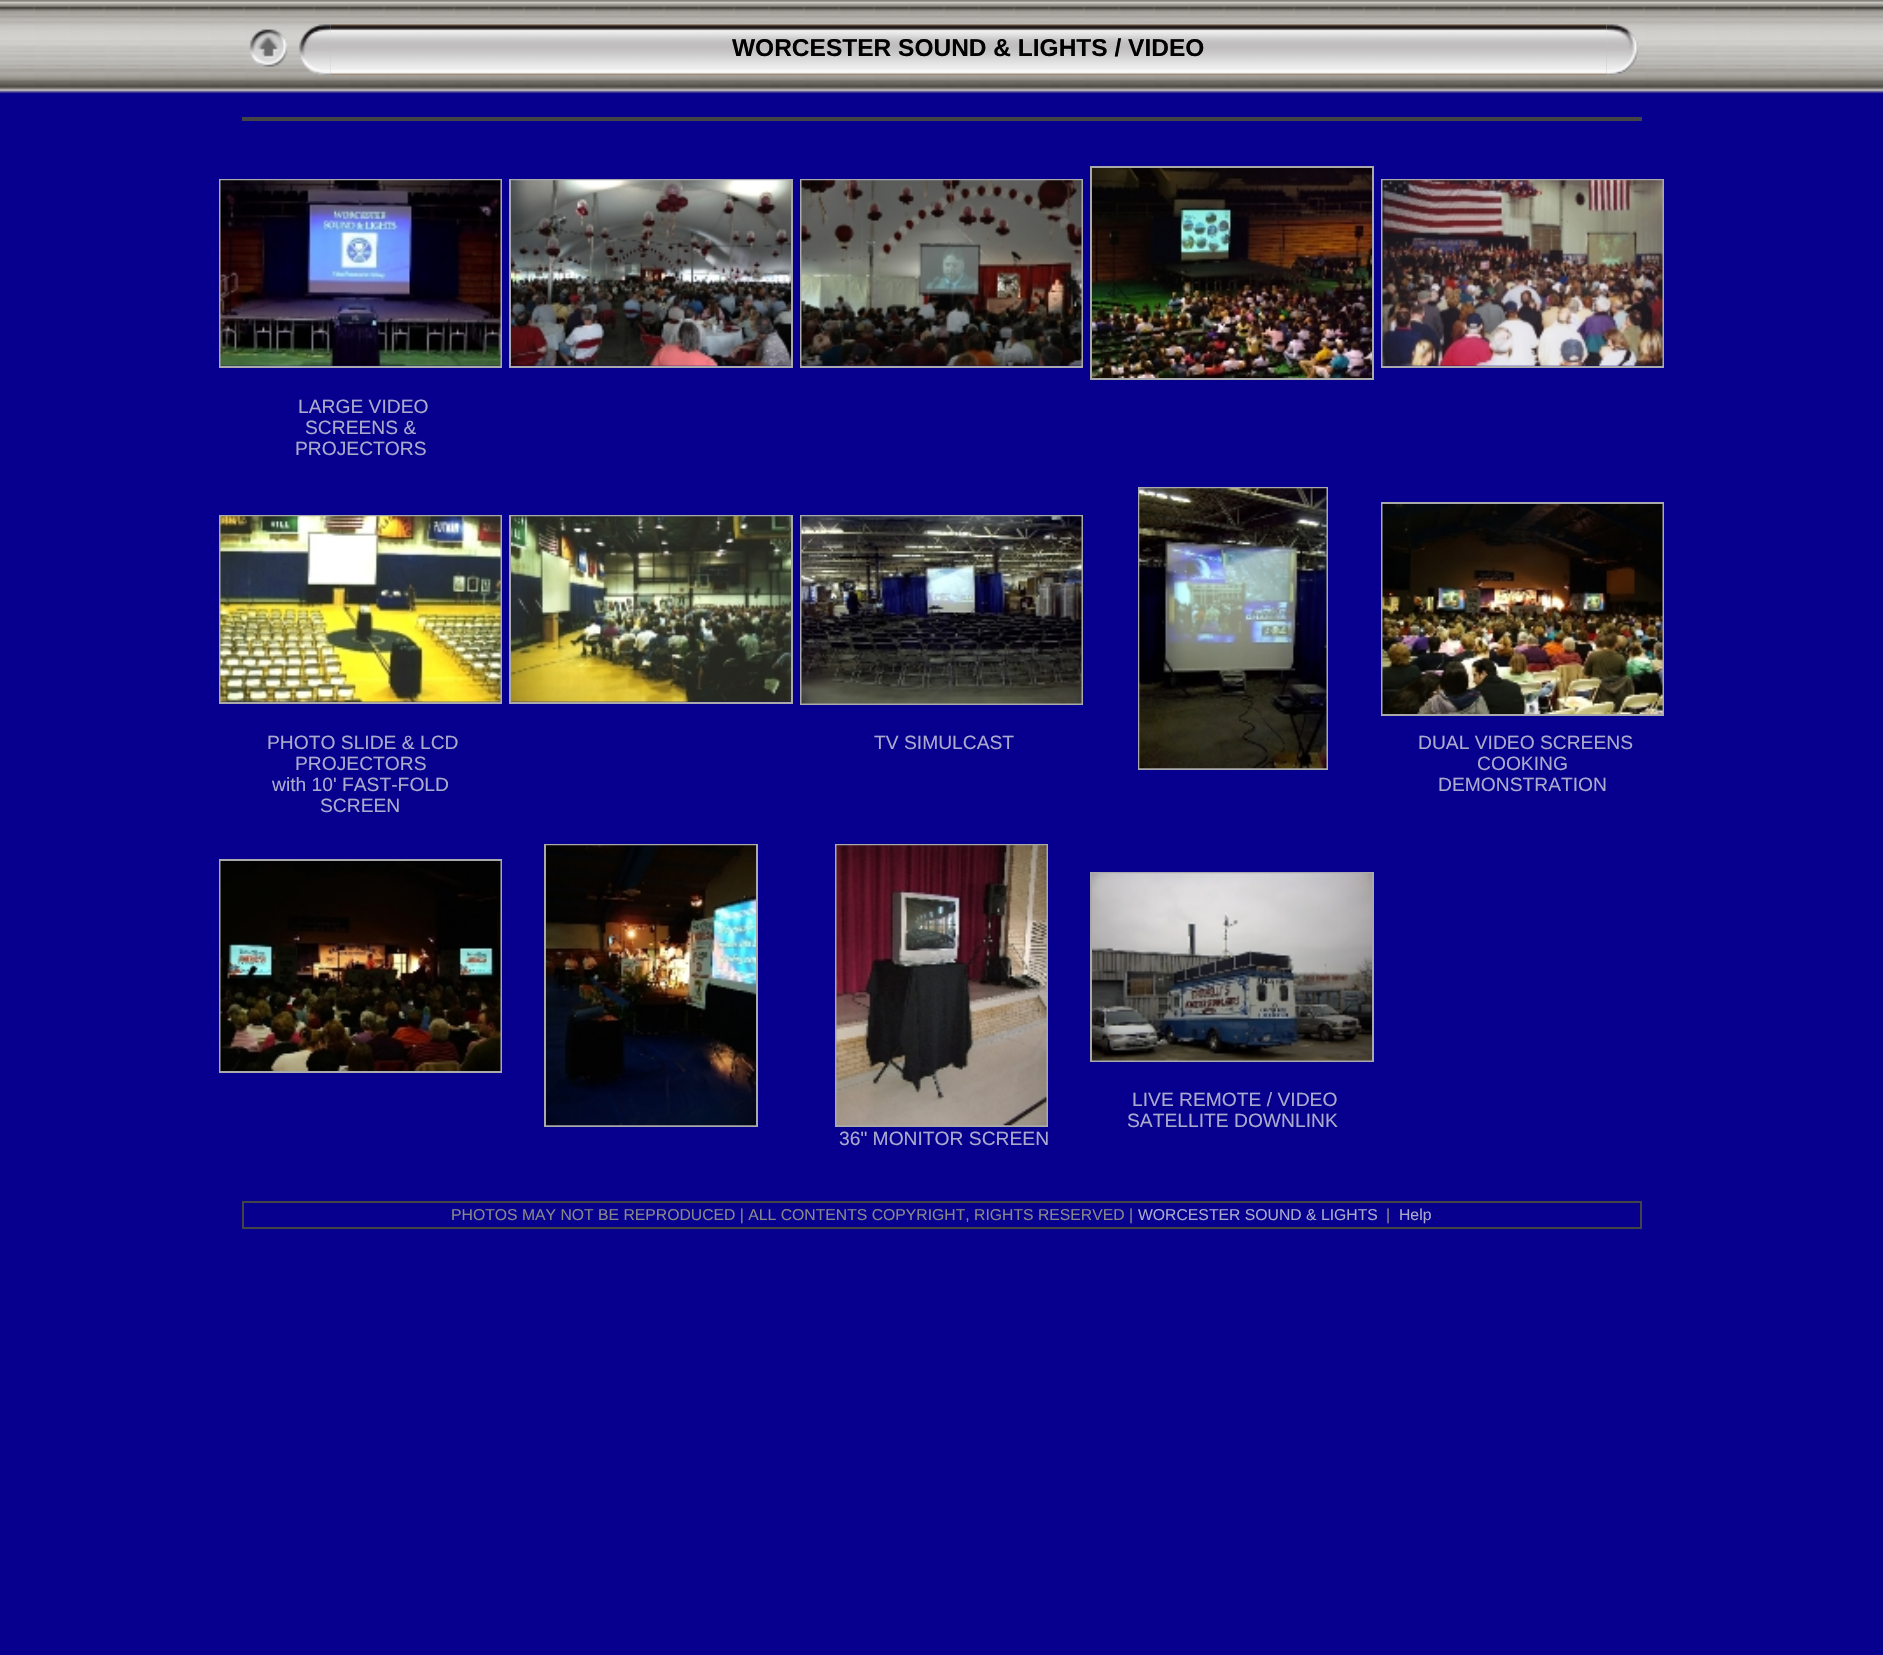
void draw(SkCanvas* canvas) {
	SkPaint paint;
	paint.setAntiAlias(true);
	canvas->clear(0xff07008f);
	canvas->drawImageRect(SkImages::DeferredFromEncodedData(SkData::MakeFromFileName("img1.png")), SkRect::MakeXYWH(0, 0, 1883, 94), SkSamplingOptions());
	canvas->drawImageRect(SkImages::DeferredFromEncodedData(SkData::MakeFromFileName("img2.png")), SkRect::MakeXYWH(248, 29, 40, 38), SkSamplingOptions());
	canvas->drawImageRect(SkImages::DeferredFromEncodedData(SkData::MakeFromFileName("img4.png")), SkRect::MakeXYWH(330, 24, 1277, 52), SkSamplingOptions());
	canvas->drawImageRect(SkImages::DeferredFromEncodedData(SkData::MakeFromFileName("img3.png")), SkRect::MakeXYWH(299, 24, 32, 52), SkSamplingOptions());
	SkFont f1(fontMgr->matchFamilyStyle("Liberation Sans", SkFontStyle::Bold()), 24.5);
	f1.setSubpixel(true);
	paint.setColor(0xff000000);
	canvas->drawString("WORCESTER SOUND & LIGHTS / VIDEO", 732, 56, f1, paint);
	canvas->drawImageRect(SkImages::DeferredFromEncodedData(SkData::MakeFromFileName("img5.png")), SkRect::MakeXYWH(1606, 24, 33, 51), SkSamplingOptions());
	paint.setColor(0xff444444);
	canvas->drawRect(SkRect::MakeXYWH(242, 117, 1400, 4), paint);
	paint.setStroke(true);
	paint.setStrokeWidth(2);
	paint.setColor(0xffaaaaaa);
	canvas->drawRect(SkRect::MakeXYWH(510, 180, 282, 187), paint);
	canvas->drawImageRect(SkImages::DeferredFromEncodedData(SkData::MakeFromFileName("img6.png")), SkRect::MakeXYWH(511, 180, 280, 186), SkSamplingOptions());
	canvas->drawRect(SkRect::MakeXYWH(801, 180, 281, 187), paint);
	canvas->drawImageRect(SkImages::DeferredFromEncodedData(SkData::MakeFromFileName("img7.png")), SkRect::MakeXYWH(801, 180, 281, 186), SkSamplingOptions());
	canvas->drawRect(SkRect::MakeXYWH(1091, 167, 282, 212), paint);
	canvas->drawImageRect(SkImages::DeferredFromEncodedData(SkData::MakeFromFileName("img8.png")), SkRect::MakeXYWH(1092, 168, 280, 210), SkSamplingOptions());
	canvas->drawRect(SkRect::MakeXYWH(1382, 180, 281, 187), paint);
	canvas->drawImageRect(SkImages::DeferredFromEncodedData(SkData::MakeFromFileName("img9.png")), SkRect::MakeXYWH(1382, 180, 281, 186), SkSamplingOptions());
	canvas->drawRect(SkRect::MakeXYWH(220, 180, 281, 187), paint);
	canvas->drawImageRect(SkImages::DeferredFromEncodedData(SkData::MakeFromFileName("img10.png")), SkRect::MakeXYWH(220, 180, 281, 186), SkSamplingOptions());
	SkFont f2(fontMgr->matchFamilyStyle("Liberation Sans", SkFontStyle::Normal()), 19.25);
	f2.setSubpixel(true);
	paint.setStroke(false);
	paint.setColor(0xffaaaacc);
	canvas->drawString("LARGE VIDEO", 298, 413, f2, paint);
	canvas->drawString("SCREENS &", 305, 434, f2, paint);
	canvas->drawString("PROJECTORS", 295, 455, f2, paint);
	paint.setStroke(true);
	paint.setColor(0xffaaaaaa);
	canvas->drawRect(SkRect::MakeXYWH(510, 516, 282, 187), paint);
	canvas->drawImageRect(SkImages::DeferredFromEncodedData(SkData::MakeFromFileName("img11.png")), SkRect::MakeXYWH(511, 516, 280, 186), SkSamplingOptions());
	canvas->drawRect(SkRect::MakeXYWH(1139, 488, 188, 281), paint);
	canvas->drawImageRect(SkImages::DeferredFromEncodedData(SkData::MakeFromFileName("img12.png")), SkRect::MakeXYWH(1139, 488, 188, 281), SkSamplingOptions());
	canvas->drawRect(SkRect::MakeXYWH(220, 516, 281, 187), paint);
	canvas->drawImageRect(SkImages::DeferredFromEncodedData(SkData::MakeFromFileName("img13.png")), SkRect::MakeXYWH(220, 516, 281, 186), SkSamplingOptions());
	paint.setStroke(false);
	paint.setColor(0xffaaaacc);
	canvas->drawString("PHOTO SLIDE & LCD", 267, 749, f2, paint);
	canvas->drawString("PROJECTORS", 295, 770, f2, paint);
	canvas->drawString("with 10' FAST-FOLD", 272, 791, f2, paint);
	canvas->drawString("SCREEN", 320, 812, f2, paint);
	paint.setStroke(true);
	paint.setColor(0xffaaaaaa);
	canvas->drawRect(SkRect::MakeXYWH(801, 516, 281, 188), paint);
	canvas->drawImageRect(SkImages::DeferredFromEncodedData(SkData::MakeFromFileName("img14.png")), SkRect::MakeXYWH(801, 516, 281, 188), SkSamplingOptions());
	paint.setStroke(false);
	paint.setColor(0xffaaaacc);
	canvas->drawString("TV SIMULCAST", 874, 749, f2, paint);
	paint.setStroke(true);
	paint.setColor(0xffaaaaaa);
	canvas->drawRect(SkRect::MakeXYWH(1382, 503, 281, 212), paint);
	canvas->drawImageRect(SkImages::DeferredFromEncodedData(SkData::MakeFromFileName("img15.png")), SkRect::MakeXYWH(1382, 504, 281, 210), SkSamplingOptions());
	paint.setStroke(false);
	paint.setColor(0xffaaaacc);
	canvas->drawString("DUAL VIDEO SCREENS", 1418, 749, f2, paint);
	canvas->drawString("COOKING", 1477, 770, f2, paint);
	canvas->drawString("DEMONSTRATION", 1438, 791, f2, paint);
	paint.setStroke(true);
	paint.setColor(0xffaaaaaa);
	canvas->drawRect(SkRect::MakeXYWH(220, 860, 281, 212), paint);
	canvas->drawImageRect(SkImages::DeferredFromEncodedData(SkData::MakeFromFileName("img16.png")), SkRect::MakeXYWH(220, 861, 281, 210), SkSamplingOptions());
	canvas->drawRect(SkRect::MakeXYWH(545, 845, 212, 281), paint);
	canvas->drawImageRect(SkImages::DeferredFromEncodedData(SkData::MakeFromFileName("img17.png")), SkRect::MakeXYWH(546, 845, 210, 281), SkSamplingOptions());
	canvas->drawRect(SkRect::MakeXYWH(1091, 873, 282, 188), paint);
	canvas->drawImageRect(SkImages::DeferredFromEncodedData(SkData::MakeFromFileName("img18.png")), SkRect::MakeXYWH(1092, 873, 280, 188), SkSamplingOptions());
	paint.setStroke(false);
	paint.setColor(0xffaaaacc);
	canvas->drawString("LIVE REMOTE / VIDEO", 1132, 1106, f2, paint);
	canvas->drawString("SATELLITE DOWNLINK", 1127, 1127, f2, paint);
	paint.setStroke(true);
	paint.setColor(0xffaaaaaa);
	canvas->drawRect(SkRect::MakeXYWH(836, 845, 211, 281), paint);
	canvas->drawImageRect(SkImages::DeferredFromEncodedData(SkData::MakeFromFileName("img19.png")), SkRect::MakeXYWH(836, 845, 211, 281), SkSamplingOptions());
	paint.setStroke(false);
	paint.setColor(0xffaaaacc);
	canvas->drawString("36\" MONITOR SCREEN", 839, 1145, f2, paint);
	paint.setColor(0xff444444);
	canvas->drawRect(SkRect::MakeXYWH(242, 1201, 1400, 2), paint);
	canvas->drawRect(SkRect::MakeXYWH(1640, 1201, 2, 28), paint);
	canvas->drawRect(SkRect::MakeXYWH(242, 1227, 1400, 2), paint);
	canvas->drawRect(SkRect::MakeXYWH(242, 1201, 2, 28), paint);
	SkFont f3(fontMgr->matchFamilyStyle("Liberation Sans", SkFontStyle::Normal()), 15.75);
	f3.setSubpixel(true);
	paint.setColor(0xff888888);
	canvas->drawString("PHOTOS MAY NOT BE REPRODUCED | ALL CONTENTS COPYRIGHT, RIGHTS RESERVED |", 451, 1220, f3, paint);
	paint.setColor(0xffaaaacc);
	canvas->drawString("WORCESTER SOUND & LIGHTS", 1138, 1220, f3, paint);
	paint.setColor(0xff888888);
	canvas->drawString("|", 1386, 1220, f3, paint);
	paint.setColor(0xffaaaacc);
	canvas->drawString("Help", 1399, 1220, f3, paint);
}
